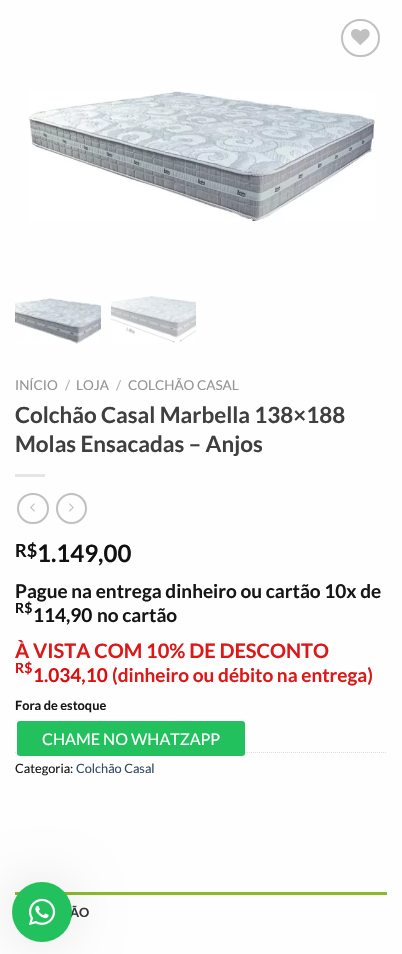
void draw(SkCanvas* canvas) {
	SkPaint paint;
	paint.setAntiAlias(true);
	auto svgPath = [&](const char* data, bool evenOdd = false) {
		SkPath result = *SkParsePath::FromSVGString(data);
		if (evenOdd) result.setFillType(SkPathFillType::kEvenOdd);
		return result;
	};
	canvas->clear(0xfffefefe);
	paint.setStroke(true);
	paint.setStrokeWidth(2);
	paint.setColor(0xffc0c0c0);
	canvas->drawRoundRect(SkRect::MakeXYWH(342, 20, 37, 36), 18, 18, paint);
	canvas->drawImageRect(SkImages::DeferredFromEncodedData(SkData::MakeFromFileName("img1.png")), SkRect::MakeXYWH(351, 29, 19, 16), SkSamplingOptions());
	canvas->drawImageRect(SkImages::DeferredFromEncodedData(SkData::MakeFromFileName("img2.png")), SkRect::MakeXYWH(28, 91, 347, 131), SkSamplingOptions());
	canvas->drawImageRect(SkImages::DeferredFromEncodedData(SkData::MakeFromFileName("img3.png")), SkRect::MakeXYWH(15, 298, 86, 46), SkSamplingOptions());
	canvas->drawImageRect(SkImages::DeferredFromEncodedData(SkData::MakeFromFileName("img4.png")), SkRect::MakeXYWH(111, 296, 85, 47), SkSamplingOptions());
	SkFont f1(fontMgr->matchFamilyStyle("Lato", SkFontStyle::Normal()), 13.5);
	f1.setSubpixel(true);
	paint.setStroke(false);
	paint.setColor(0xff949494);
	canvas->drawString("INÍCIO", 15, 390, f1, paint);
	paint.setColor(0xffb1b1b1);
	canvas->drawString("/", 65, 390, f1, paint);
	paint.setColor(0xff949494);
	canvas->drawString("LOJA", 76, 390, f1, paint);
	paint.setColor(0xffb1b1b1);
	canvas->drawString("/", 116, 390, f1, paint);
	paint.setColor(0xff949494);
	canvas->drawString("COLCHÃO CASAL", 128, 390, f1, paint);
	SkFont f2(fontMgr->matchFamilyStyle("Lato", SkFontStyle::Bold()), 22.4);
	f2.setSubpixel(true);
	paint.setColor(0xff403f3f);
	canvas->drawString("Colchão Casal Marbella 138×188", 15, 423, f2, paint);
	canvas->drawString("Molas Ensacadas – Anjos", 15, 452, f2, paint);
	paint.setColor(0xffe5e5e5);
	canvas->drawRect(SkRect::MakeXYWH(15, 474, 30, 3), paint);
	paint.setStroke(true);
	paint.setColor(0xffc0c0c0);
	canvas->drawRoundRect(SkRect::MakeXYWH(18, 494, 30, 29), 14.5, 14.5, paint);
	canvas->drawImageRect(SkImages::DeferredFromEncodedData(SkData::MakeFromFileName("img5.png")), SkRect::MakeXYWH(30, 503, 5, 9), SkSamplingOptions());
	canvas->drawCircle(71.5, 508.5, 14.5, paint);
	canvas->drawImageRect(SkImages::DeferredFromEncodedData(SkData::MakeFromFileName("img6.png")), SkRect::MakeXYWH(69, 503, 5, 9), SkSamplingOptions());
	SkFont f3(fontMgr->matchFamilyStyle("Lato", SkFontStyle::Bold()), 18);
	f3.setSubpixel(true);
	paint.setStroke(false);
	paint.setColor(0xff111111);
	canvas->drawString("R$", 15, 557, f3, paint);
	SkFont f4(fontMgr->matchFamilyStyle("Lato", SkFontStyle::Bold()), 24);
	f4.setSubpixel(true);
	canvas->drawString("1.149,00", 37, 562, f4, paint);
	SkFont f5(fontMgr->matchFamilyStyle("Lato", SkFontStyle::Bold()), 19);
	f5.setSubpixel(true);
	paint.setColor(0xff171616);
	canvas->drawString("Pague na entrega dinheiro ou cartão 10x de", 15, 598, f5, paint);
	SkFont f6(fontMgr->matchFamilyStyle("Lato", SkFontStyle::Bold()), 14);
	f6.setSubpixel(true);
	paint.setColor(0xff111111);
	canvas->drawString("R$", 15, 613, f6, paint);
	canvas->drawString("114,90", 33, 622, f5, paint);
	paint.setColor(0xff171616);
	canvas->drawString("no cartão", 97, 622, f5, paint);
	SkFont f7(fontMgr->matchFamilyStyle("Lato", SkFontStyle::Bold()), 20);
	f7.setSubpixel(true);
	paint.setColor(0xffdd1818);
	canvas->drawString("À VISTA COM 10% DE DESCONTO", 15, 658, f7, paint);
	paint.setColor(0xffdd0d0d);
	canvas->drawString("R$", 15, 673, f6, paint);
	canvas->drawString("1.034,10", 33, 682, f5, paint);
	paint.setColor(0xffdd1818);
	canvas->drawString("(dinheiro ou débito na entrega)", 112, 682, f5, paint);
	SkFont f8(fontMgr->matchFamilyStyle("Lato", SkFontStyle::Bold()), 12.75);
	f8.setSubpixel(true);
	paint.setColor(0xff171616);
	canvas->drawString("Fora de estoque", 15, 710, f8, paint);
	paint.setStroke(true);
	paint.setStrokeWidth(1);
	paint.setColor(0xffdddddd);
	paint.setPathEffect(SkDashPathEffect::Make({{1, 1}}, 0));
	canvas->drawPath(svgPath("M15 752.5H387"), paint);
	paint.setPathEffect(nullptr);
	paint.setStroke(false);
	paint.setColor(0xff22c15e);
	canvas->drawRoundRect(SkRect::MakeXYWH(17, 721, 228, 35), 3, 3, paint);
	SkFont f9(fontMgr->matchFamilyStyle("Lato", SkFontStyle::Normal()), 16);
	f9.setSubpixel(true);
	paint.setColor(0xffffffff);
	canvas->drawString("CHAME NO WHATZAPP", 42, 745, f9, paint);
	SkFont f10(fontMgr->matchFamilyStyle("Lato", SkFontStyle::Normal()), 12.75);
	f10.setSubpixel(true);
	paint.setColor(0xff171616);
	canvas->drawString("Categoria:", 15, 773, f10, paint);
	paint.setColor(0xff334862);
	canvas->drawString("Colchão Casal", 76, 773, f10, paint);
	paint.setColor(0xff8cb928);
	canvas->drawRect(SkRect::MakeXYWH(15, 892, 372, 3), paint);
	paint.setColor(0xff353535);
	canvas->drawString("ÃO", 70, 917, f8, paint);
	paint.setColor(0x1a000000);
	paint.setMaskFilter(SkMaskFilter::MakeBlur(kNormal_SkBlurStyle, 25));
	canvas->drawRoundRect(SkRect::MakeXYWH(12, 882, 60, 60), 30, 30, paint);
	paint.setMaskFilter(nullptr);
	paint.setColor(0xff22c15e);
	canvas->drawCircle(42, 912, 30, paint);
	canvas->drawImageRect(SkImages::DeferredFromEncodedData(SkData::MakeFromFileName("img7.png")), SkRect::MakeXYWH(29, 898, 27, 27), SkSamplingOptions());
}
